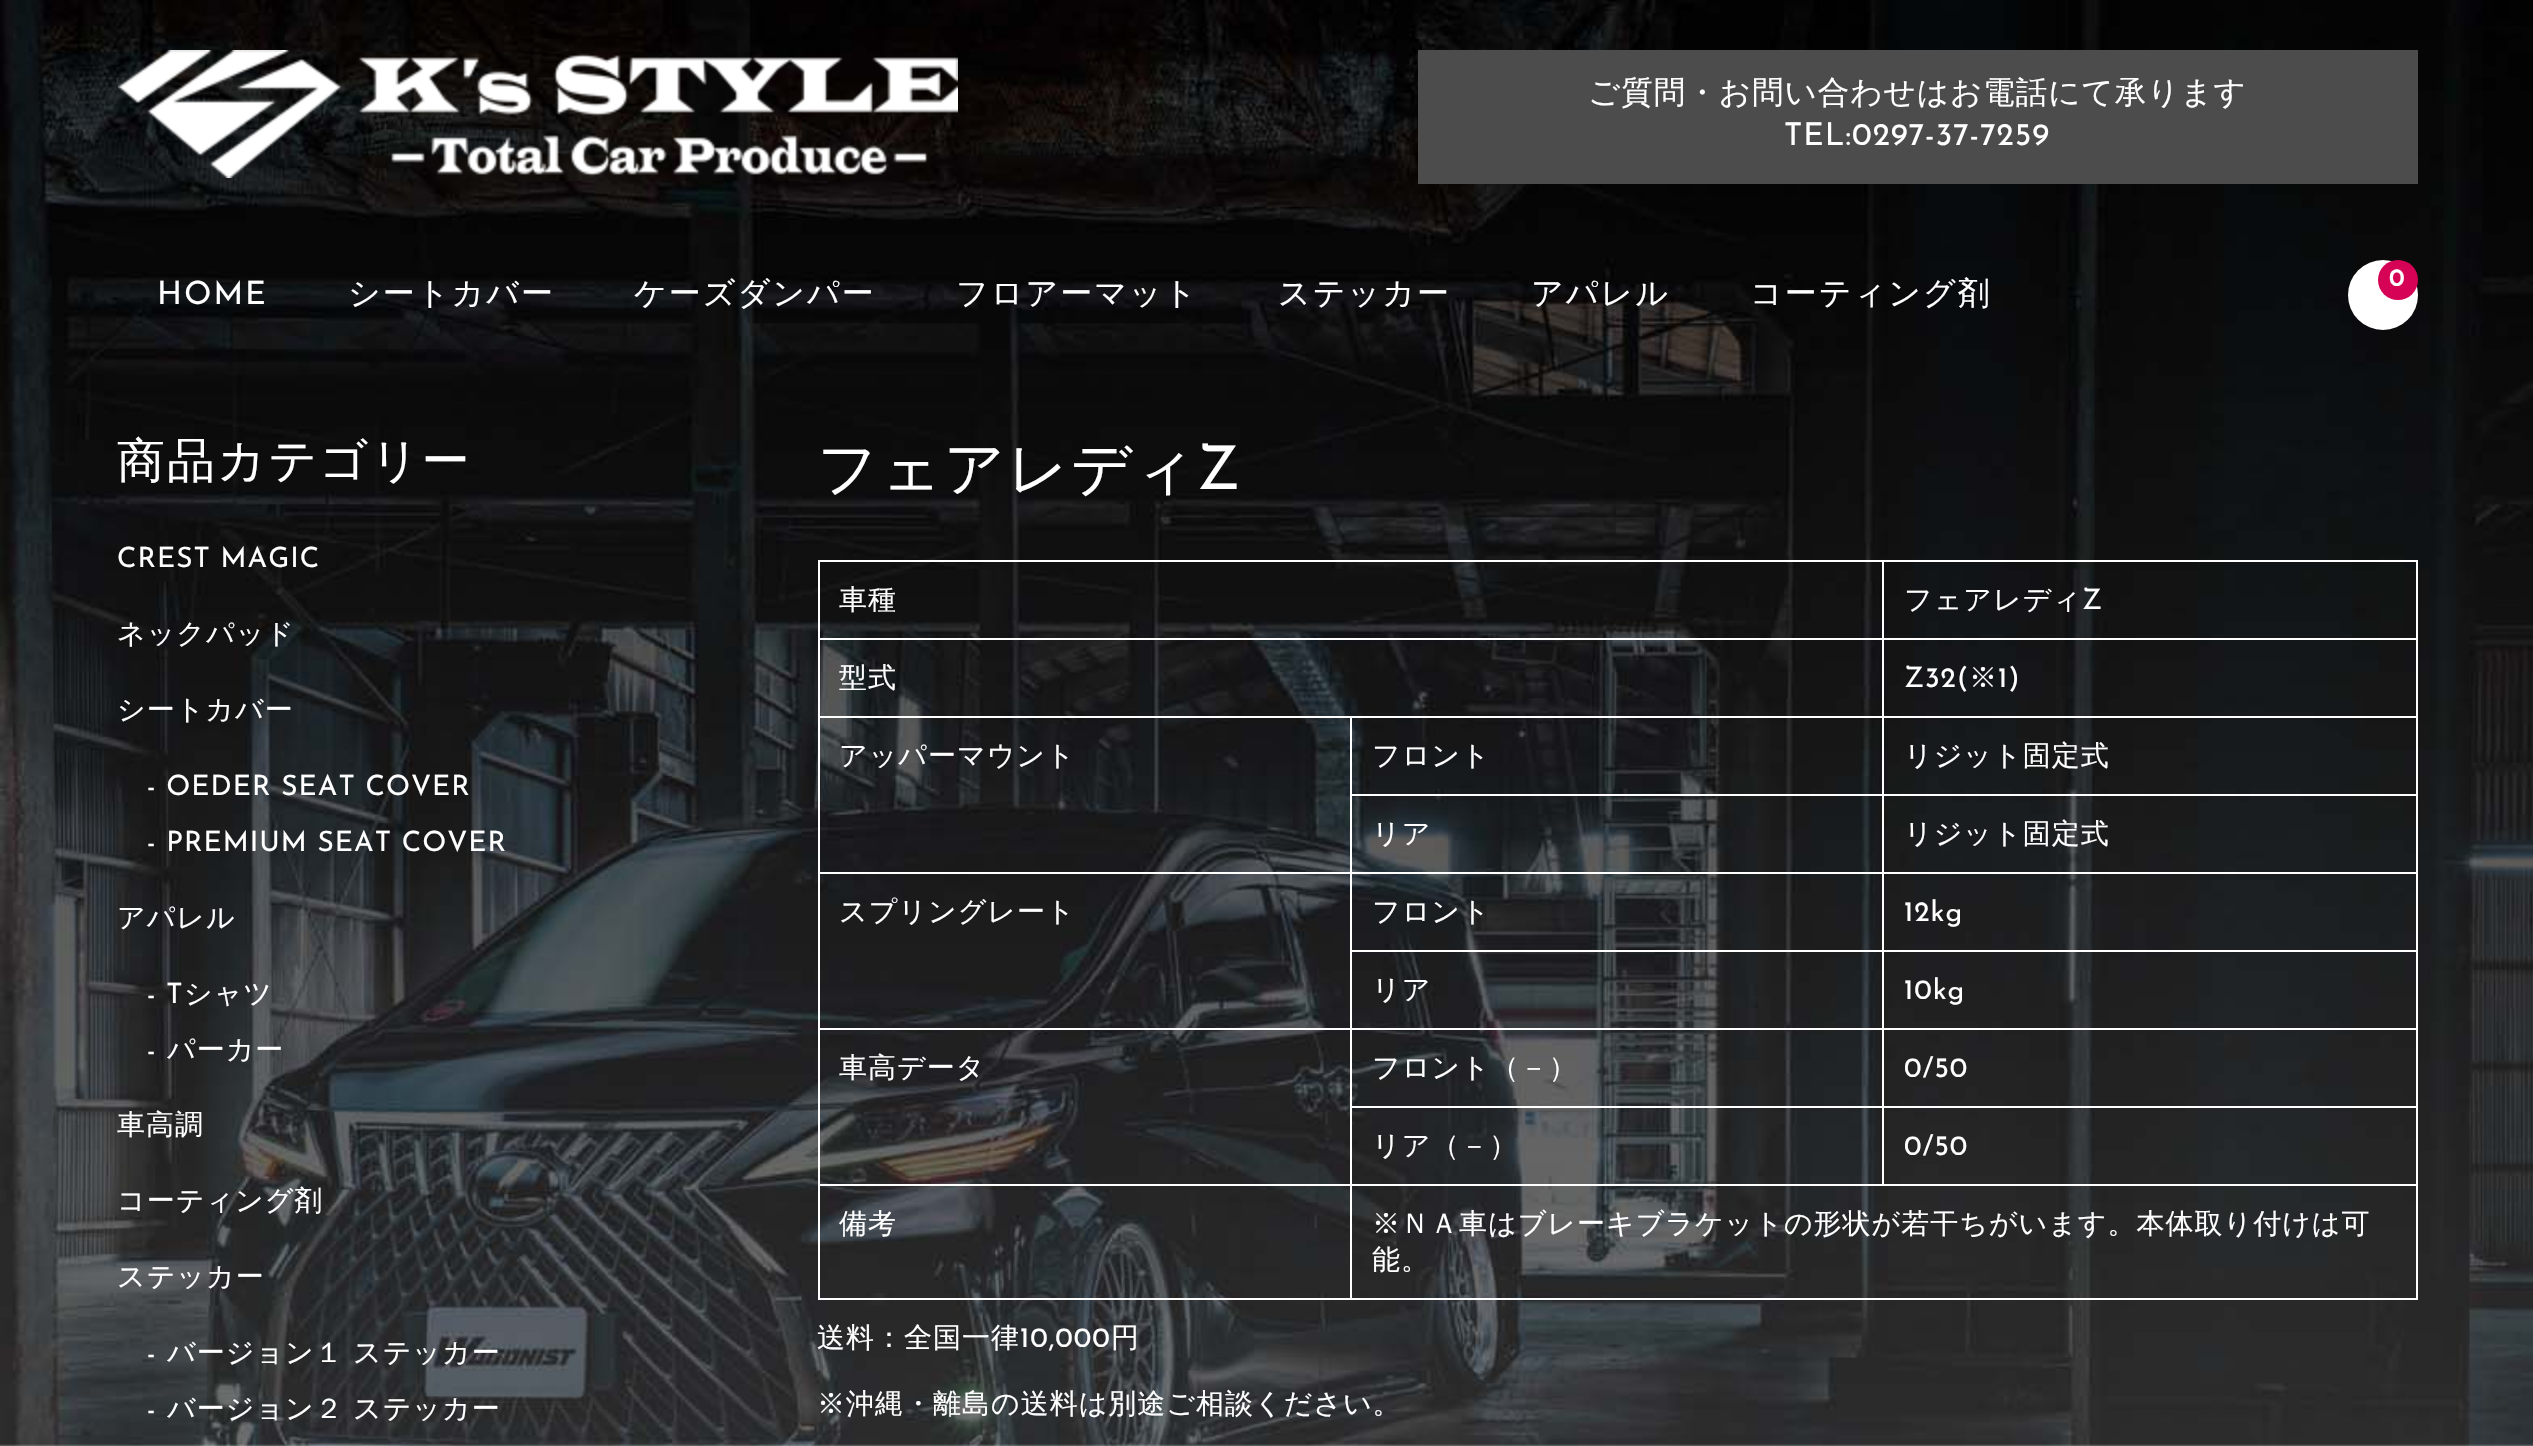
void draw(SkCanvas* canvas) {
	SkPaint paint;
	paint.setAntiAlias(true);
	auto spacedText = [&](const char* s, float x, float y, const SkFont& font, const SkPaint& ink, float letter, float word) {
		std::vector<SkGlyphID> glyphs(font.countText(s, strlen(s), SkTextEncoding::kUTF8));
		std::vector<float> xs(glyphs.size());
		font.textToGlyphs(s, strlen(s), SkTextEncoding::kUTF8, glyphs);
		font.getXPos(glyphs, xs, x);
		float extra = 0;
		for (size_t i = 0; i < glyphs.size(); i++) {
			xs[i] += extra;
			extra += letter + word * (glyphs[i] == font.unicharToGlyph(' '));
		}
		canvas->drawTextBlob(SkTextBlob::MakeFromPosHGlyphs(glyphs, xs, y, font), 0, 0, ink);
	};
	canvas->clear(0xffffffff);
	canvas->drawImageRect(SkImages::DeferredFromEncodedData(SkData::MakeFromFileName("img1.png")), SkRect::MakeXYWH(0, 0, 2533, 1446), SkSamplingOptions());
	canvas->drawImageRect(SkImages::DeferredFromEncodedData(SkData::MakeFromFileName("img2.png")), SkRect::MakeXYWH(118, 50, 840, 128), SkSamplingOptions());
	paint.setColor(0xff4c4c4c);
	canvas->drawRect(SkRect::MakeXYWH(1418, 50, 1000, 134), paint);
	SkFont f1(fontMgr->matchFamilyStyle("WenQuanYi Zen Hei", SkFontStyle(500, SkFontStyle::kNormal_Width, SkFontStyle::kUpright_Slant)), 31.5);
	f1.setSubpixel(true);
	paint.setColor(0xffffffff);
	spacedText("ご質問・お問い合わせはお電話にて承ります", 1588, 103, f1, paint, 1, 0);
	SkFont f2(fontMgr->matchFamilyStyle("Josefin Sans", SkFontStyle(100, SkFontStyle::kNormal_Width, SkFontStyle::kUpright_Slant)), 31.5);
	f2.setSubpixel(true);
	spacedText("TEL:0297-37-7259", 1784, 145, f2, paint, 1, 0);
	SkFont f3(fontMgr->matchFamilyStyle("Josefin Sans", SkFontStyle(100, SkFontStyle::kNormal_Width, SkFontStyle::kUpright_Slant)), 32);
	f3.setSubpixel(true);
	spacedText("HOME", 157, 304, f3, paint, 2, 0);
	SkFont f4(fontMgr->matchFamilyStyle("WenQuanYi Zen Hei", SkFontStyle(500, SkFontStyle::kNormal_Width, SkFontStyle::kUpright_Slant)), 32);
	f4.setSubpixel(true);
	spacedText("シートカバー", 348, 304, f4, paint, 2, 0);
	spacedText("ケーズダンパー", 634, 304, f4, paint, 2, 0);
	spacedText("フロアーマット", 956, 304, f4, paint, 2, 0);
	spacedText("ステッカー", 1278, 304, f4, paint, 2, 0);
	spacedText("アパレル", 1531, 304, f4, paint, 2, 0);
	spacedText("コーティング剤", 1750, 304, f4, paint, 2, 0);
	canvas->drawCircle(2383, 295, 35, paint);
	paint.setColor(0xffd60256);
	canvas->drawCircle(2398, 280, 20, paint);
	SkFont f5(fontMgr->matchFamilyStyle("Josefin Sans", SkFontStyle::Bold()), 24);
	f5.setSubpixel(true);
	paint.setColor(0xffffffff);
	spacedText("0", 2389, 286, f5, paint, 2, 0);
	SkFont f6(fontMgr->matchFamilyStyle("WenQuanYi Zen Hei", SkFontStyle(500, SkFontStyle::kNormal_Width, SkFontStyle::kUpright_Slant)), 48);
	f6.setSubpixel(true);
	spacedText("商品カテゴリー", 117, 477, f6, paint, 2, 0);
	SkFont f7(fontMgr->matchFamilyStyle("Josefin Sans", SkFontStyle(100, SkFontStyle::kNormal_Width, SkFontStyle::kUpright_Slant)), 28);
	f7.setSubpixel(true);
	spacedText("CREST MAGIC", 117, 567, f7, paint, 1, 0);
	SkFont f8(fontMgr->matchFamilyStyle("WenQuanYi Zen Hei", SkFontStyle(500, SkFontStyle::kNormal_Width, SkFontStyle::kUpright_Slant)), 28);
	f8.setSubpixel(true);
	spacedText("ネックパッド", 117, 643, f8, paint, 1, 0);
	spacedText("シートカバー", 117, 719, f8, paint, 1, 0);
	spacedText("- OEDER SEAT COVER", 147, 795, f7, paint, 1, 0);
	spacedText("- PREMIUM SEAT COVER", 147, 851, f7, paint, 1, 0);
	spacedText("アパレル", 117, 927, f8, paint, 1, 0);
	spacedText("- T", 147, 1003, f7, paint, 1, 0);
	spacedText("シャツ", 184, 1003, f8, paint, 1, 0);
	spacedText("-", 147, 1059, f7, paint, 1, 0);
	spacedText("パーカー", 167, 1059, f8, paint, 1, 0);
	spacedText("車高調", 117, 1134, f8, paint, 1, 0);
	spacedText("コーティング剤", 117, 1210, f8, paint, 1, 0);
	spacedText("ステッカー", 117, 1286, f8, paint, 1, 0);
	spacedText("-", 147, 1362, f7, paint, 1, 0);
	spacedText("バージョン１ ステッカー", 167, 1362, f8, paint, 1, 0);
	spacedText("-", 147, 1418, f7, paint, 1, 0);
	spacedText("バージョン２ ステッカー", 167, 1418, f8, paint, 1, 0);
	SkFont f9(fontMgr->matchFamilyStyle("WenQuanYi Zen Hei", SkFontStyle(500, SkFontStyle::kNormal_Width, SkFontStyle::kUpright_Slant)), 60);
	f9.setSubpixel(true);
	spacedText("フェアレディ", 817, 489, f9, paint, 2, 0);
	SkFont f10(fontMgr->matchFamilyStyle("Josefin Sans", SkFontStyle(100, SkFontStyle::kNormal_Width, SkFontStyle::kUpright_Slant)), 60);
	f10.setSubpixel(true);
	spacedText("Z", 1197, 489, f10, paint, 2, 0);
	canvas->drawRect(SkRect::MakeXYWH(1882, 560, 536, 2), paint);
	canvas->drawRect(SkRect::MakeXYWH(1882, 638, 536, 2), paint);
	canvas->drawRect(SkRect::MakeXYWH(1882, 716, 536, 2), paint);
	canvas->drawRect(SkRect::MakeXYWH(1882, 794, 536, 2), paint);
	canvas->drawRect(SkRect::MakeXYWH(1882, 872, 536, 2), paint);
	canvas->drawRect(SkRect::MakeXYWH(1882, 950, 536, 2), paint);
	canvas->drawRect(SkRect::MakeXYWH(1882, 1028, 536, 2), paint);
	canvas->drawRect(SkRect::MakeXYWH(1882, 1106, 536, 2), paint);
	canvas->drawRect(SkRect::MakeXYWH(1350, 1184, 1068, 2), paint);
	canvas->drawRect(SkRect::MakeXYWH(1882, 1106, 2, 80), paint);
	canvas->drawRect(SkRect::MakeXYWH(1350, 1106, 534, 2), paint);
	canvas->drawRect(SkRect::MakeXYWH(1882, 1028, 2, 80), paint);
	canvas->drawRect(SkRect::MakeXYWH(1350, 1028, 534, 2), paint);
	canvas->drawRect(SkRect::MakeXYWH(1882, 950, 2, 80), paint);
	canvas->drawRect(SkRect::MakeXYWH(1350, 950, 534, 2), paint);
	canvas->drawRect(SkRect::MakeXYWH(1882, 872, 2, 80), paint);
	canvas->drawRect(SkRect::MakeXYWH(1350, 872, 534, 2), paint);
	canvas->drawRect(SkRect::MakeXYWH(1882, 794, 2, 80), paint);
	canvas->drawRect(SkRect::MakeXYWH(1350, 794, 534, 2), paint);
	canvas->drawRect(SkRect::MakeXYWH(1882, 716, 2, 80), paint);
	canvas->drawRect(SkRect::MakeXYWH(1350, 716, 534, 2), paint);
	canvas->drawRect(SkRect::MakeXYWH(1882, 638, 2, 80), paint);
	canvas->drawRect(SkRect::MakeXYWH(818, 638, 1066, 2), paint);
	canvas->drawRect(SkRect::MakeXYWH(1882, 560, 2, 80), paint);
	canvas->drawRect(SkRect::MakeXYWH(818, 560, 1066, 2), paint);
	canvas->drawRect(SkRect::MakeXYWH(2416, 1184, 2, 116), paint);
	canvas->drawRect(SkRect::MakeXYWH(1350, 1298, 1068, 2), paint);
	canvas->drawRect(SkRect::MakeXYWH(1350, 1184, 2, 116), paint);
	canvas->drawRect(SkRect::MakeXYWH(818, 1184, 534, 2), paint);
	canvas->drawRect(SkRect::MakeXYWH(1350, 1106, 2, 80), paint);
	canvas->drawRect(SkRect::MakeXYWH(1350, 1028, 2, 80), paint);
	canvas->drawRect(SkRect::MakeXYWH(818, 1028, 534, 2), paint);
	canvas->drawRect(SkRect::MakeXYWH(1350, 950, 2, 80), paint);
	canvas->drawRect(SkRect::MakeXYWH(1350, 872, 2, 80), paint);
	canvas->drawRect(SkRect::MakeXYWH(818, 872, 534, 2), paint);
	canvas->drawRect(SkRect::MakeXYWH(1350, 794, 2, 80), paint);
	canvas->drawRect(SkRect::MakeXYWH(1350, 716, 2, 80), paint);
	canvas->drawRect(SkRect::MakeXYWH(818, 716, 534, 2), paint);
	canvas->drawRect(SkRect::MakeXYWH(818, 1298, 534, 2), paint);
	canvas->drawRect(SkRect::MakeXYWH(818, 1184, 2, 116), paint);
	canvas->drawRect(SkRect::MakeXYWH(818, 1028, 2, 158), paint);
	canvas->drawRect(SkRect::MakeXYWH(818, 872, 2, 158), paint);
	canvas->drawRect(SkRect::MakeXYWH(818, 716, 2, 158), paint);
	canvas->drawRect(SkRect::MakeXYWH(818, 638, 2, 80), paint);
	canvas->drawRect(SkRect::MakeXYWH(818, 560, 2, 80), paint);
	spacedText("車種", 839, 609, f8, paint, 1, 0);
	canvas->drawRect(SkRect::MakeXYWH(2416, 1106, 2, 80), paint);
	canvas->drawRect(SkRect::MakeXYWH(2416, 1028, 2, 80), paint);
	canvas->drawRect(SkRect::MakeXYWH(2416, 950, 2, 80), paint);
	canvas->drawRect(SkRect::MakeXYWH(2416, 872, 2, 80), paint);
	canvas->drawRect(SkRect::MakeXYWH(2416, 794, 2, 80), paint);
	canvas->drawRect(SkRect::MakeXYWH(2416, 716, 2, 80), paint);
	canvas->drawRect(SkRect::MakeXYWH(2416, 638, 2, 80), paint);
	canvas->drawRect(SkRect::MakeXYWH(2416, 560, 2, 80), paint);
	spacedText("フェアレディ", 1904, 609, f8, paint, 1, 0);
	spacedText("Z", 2082, 609, f7, paint, 1, 0);
	spacedText("型式", 839, 687, f8, paint, 1, 0);
	spacedText("Z32(", 1904, 687, f7, paint, 1, 0);
	spacedText("※", 1969, 687, f8, paint, 1, 0);
	spacedText("1)", 1998, 687, f7, paint, 1, 0);
	spacedText("アッパーマウント", 839, 765, f8, paint, 1, 0);
	spacedText("フロント", 1372, 765, f8, paint, 1, 0);
	spacedText("リジット固定式", 1904, 765, f8, paint, 1, 0);
	spacedText("リア", 1372, 843, f8, paint, 1, 0);
	spacedText("リジット固定式", 1904, 843, f8, paint, 1, 0);
	spacedText("スプリングレート", 839, 921, f8, paint, 1, 0);
	spacedText("フロント", 1372, 921, f8, paint, 1, 0);
	spacedText("12kg", 1904, 921, f7, paint, 1, 0);
	spacedText("リア", 1372, 999, f8, paint, 1, 0);
	spacedText("10kg", 1904, 999, f7, paint, 1, 0);
	spacedText("車高データ", 839, 1077, f8, paint, 1, 0);
	spacedText("フロント（－）", 1372, 1077, f8, paint, 1, 0);
	spacedText("0/50", 1904, 1077, f7, paint, 1, 0);
	spacedText("リア（－）", 1372, 1155, f8, paint, 1, 0);
	spacedText("0/50", 1904, 1155, f7, paint, 1, 0);
	spacedText("備考", 839, 1233, f8, paint, 1, 0);
	spacedText("※ＮＡ車はブレーキブラケットの形状が若干ちがいます。本体取り付けは可", 1372, 1233, f8, paint, 1, 0);
	spacedText("能。", 1372, 1269, f8, paint, 1, 0);
	spacedText("送料：全国一律", 817, 1347, f8, paint, 1, 0);
	spacedText("10,000", 1020, 1347, f7, paint, 1, 0);
	spacedText("円", 1111, 1347, f8, paint, 1, 0);
	spacedText("※沖縄・離島の送料は別途ご相談ください。", 817, 1413, f8, paint, 1, 0);
}
